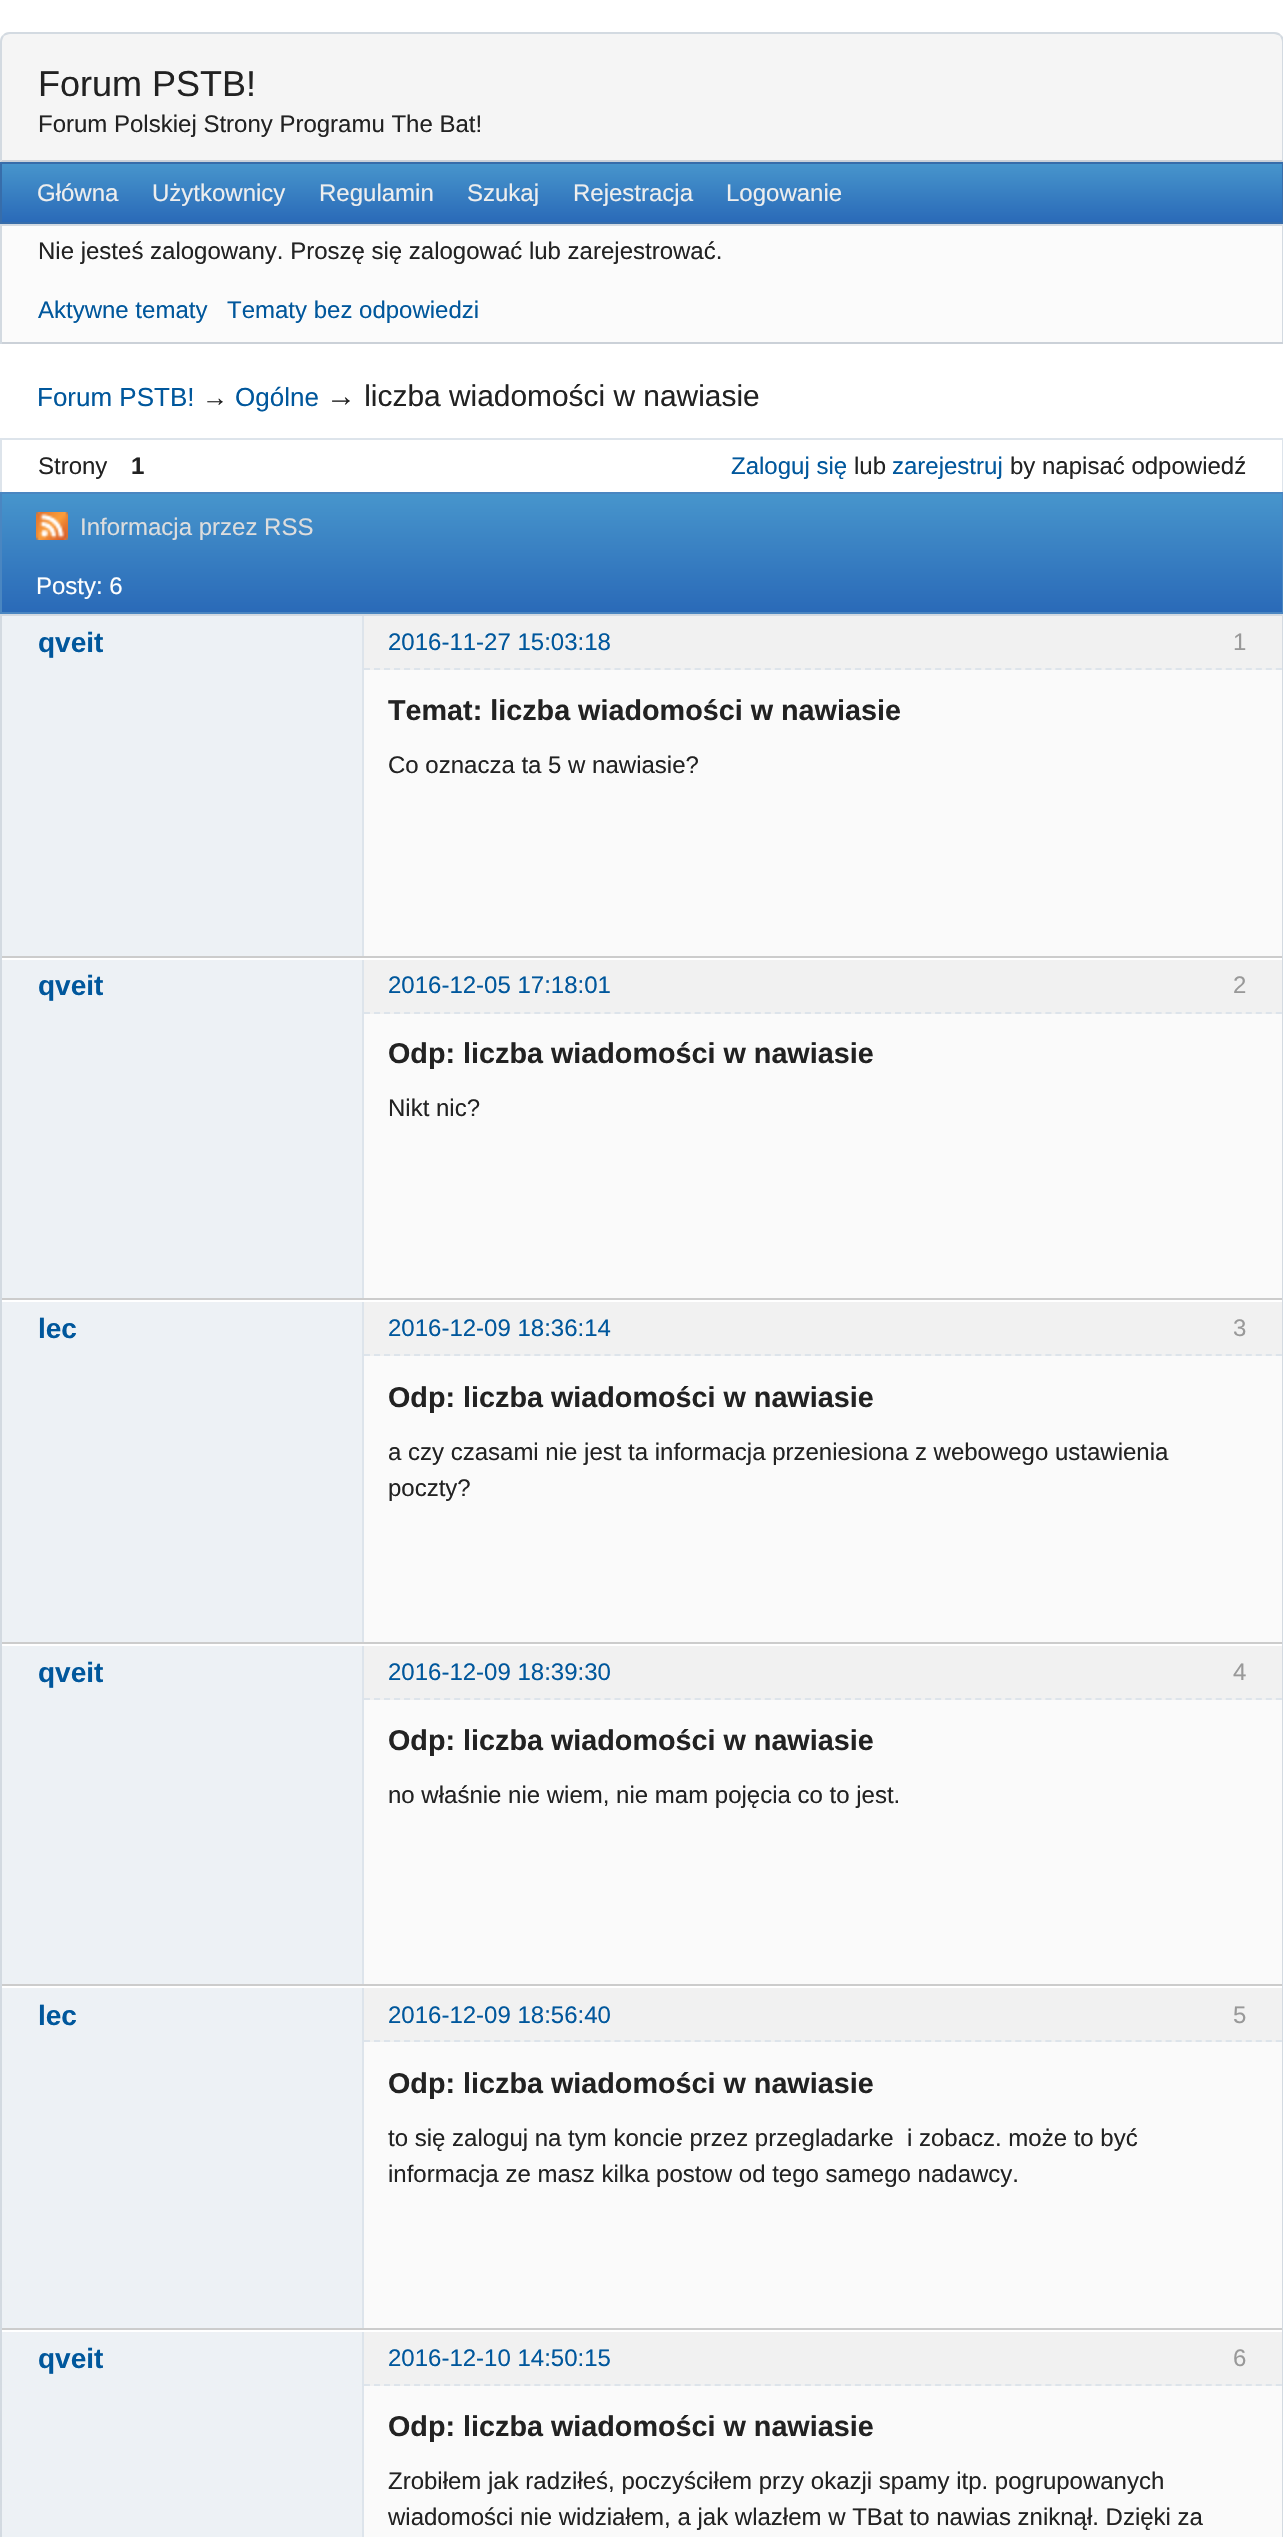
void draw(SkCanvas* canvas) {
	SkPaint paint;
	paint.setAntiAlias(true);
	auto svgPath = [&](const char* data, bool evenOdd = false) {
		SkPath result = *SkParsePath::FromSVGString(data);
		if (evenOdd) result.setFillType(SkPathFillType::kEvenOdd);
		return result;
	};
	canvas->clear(0xffffffff);
	paint.setColor(0xfff5f5f5);
	canvas->drawPath(svgPath("M10 32H1274C1279.5 32 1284 36.5 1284 42V162H0V42C0 36.5 4.5 32 10 32Z"), paint);
	paint.setColor(0xffd3dae1);
	canvas->drawPath(svgPath("M10 32C7 32 4 33 3 35L4 36C6 35 8 34 10 34H1274C1276 34 1278 35 1280 36L1281 35C1280 33 1277 32 1274 32Z"), paint);
	canvas->drawPath(svgPath("M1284 162V42C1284 39 1283 36 1281 35L1280 36C1281 38 1282 40 1282 42V160Z"), paint);
	paint.setColor(0xffcbd1d8);
	canvas->drawPath(svgPath("M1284 162L1282 160H2L0 162Z"), paint);
	paint.setColor(0xffd3dae1);
	canvas->drawPath(svgPath("M0 162L2 160V42C2 40 3 38 4 36L3 35C1 36 0 39 0 42Z"), paint);
	SkFont f1(fontMgr->matchFamilyStyle("Liberation Sans", SkFontStyle::Normal()), 36);
	f1.setSubpixel(true);
	paint.setColor(0xff222222);
	canvas->drawString("Forum PSTB!", 38, 96, f1, paint);
	SkFont f2(fontMgr->matchFamilyStyle("Liberation Sans", SkFontStyle::Normal()), 24);
	f2.setSubpixel(true);
	canvas->drawString("Forum Polskiej Strony Programu The Bat!", 38, 132, f2, paint);
	{
		const SkColor colors[] = {0xff2a6ab8, 0xff4795cc};
		const float stops[] = {0, 1};
		const SkPoint ends[] = {{642, 222}, {642, 164}};
		paint.setShader(SkGradientShader::MakeLinear(ends, colors, stops, 2, SkTileMode::kClamp));
		paint.setAlpha(255);
	}
	canvas->drawRect(SkRect::MakeXYWH(2, 164, 1280, 58), paint);
	paint.setStroke(true);
	paint.setStrokeWidth(2);
	paint.setShader(nullptr);
	paint.setColor(0xff376daa);
	canvas->drawRect(SkRect::MakeXYWH(1, 163, 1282, 60), paint);
	paint.setStroke(false);
	paint.setColor(0xffeeeeee);
	canvas->drawString("Główna", 37, 201, f2, paint);
	canvas->drawString("Użytkownicy", 152, 201, f2, paint);
	canvas->drawString("Regulamin", 319, 201, f2, paint);
	canvas->drawString("Szukaj", 467, 201, f2, paint);
	canvas->drawString("Rejestracja", 573, 201, f2, paint);
	canvas->drawString("Logowanie", 726, 201, f2, paint);
	paint.setColor(0xfffbfbfb);
	canvas->drawRect(SkRect::MakeXYWH(2, 226, 1280, 116), paint);
	paint.setColor(0xffd3dae1);
	canvas->drawRect(SkRect::MakeXYWH(0, 224, 1283, 2), paint);
	canvas->drawRect(SkRect::MakeXYWH(1282, 224, 1, 120), paint);
	paint.setColor(0xffcbd1d8);
	canvas->drawRect(SkRect::MakeXYWH(0, 342, 1283, 2), paint);
	paint.setColor(0xffd3dae1);
	canvas->drawRect(SkRect::MakeXYWH(0, 224, 2, 120), paint);
	paint.setColor(0xff222222);
	canvas->drawString("Nie jesteś zalogowany. Proszę się zalogować lub zarejestrować.", 38, 259, f2, paint);
	paint.setColor(0xff00579c);
	canvas->drawString("Aktywne tematy", 38, 318, f2, paint);
	canvas->drawString("Tematy bez odpowiedzi", 227, 318, f2, paint);
	SkFont f3(fontMgr->matchFamilyStyle("Liberation Sans", SkFontStyle::Normal()), 26);
	f3.setSubpixel(true);
	canvas->drawString("Forum PSTB!", 37, 406, f3, paint);
	paint.setColor(0xff222222);
	canvas->drawString("→", 202, 406, f3, paint);
	paint.setColor(0xff00579c);
	canvas->drawString("Ogólne", 235, 406, f3, paint);
	SkFont f4(fontMgr->matchFamilyStyle("Liberation Sans", SkFontStyle::Normal()), 29.9);
	f4.setSubpixel(true);
	paint.setColor(0xff222222);
	canvas->drawString("→ liczba wiadomości w nawiasie", 326, 406, f4, paint);
	paint.setColor(0xffdde4eb);
	canvas->drawRect(SkRect::MakeXYWH(0, 438, 1283, 2), paint);
	canvas->drawRect(SkRect::MakeXYWH(1282, 438, 1, 54), paint);
	canvas->drawRect(SkRect::MakeXYWH(0, 438, 2, 54), paint);
	paint.setColor(0xff222222);
	canvas->drawString("Strony", 38, 474, f2, paint);
	SkFont f5(fontMgr->matchFamilyStyle("Liberation Sans", SkFontStyle::Bold()), 24);
	f5.setSubpixel(true);
	canvas->drawString("1", 131, 474, f5, paint);
	paint.setColor(0xff00579c);
	canvas->drawString("Zaloguj się", 731, 474, f2, paint);
	paint.setColor(0xff222222);
	canvas->drawString("lub", 854, 474, f2, paint);
	paint.setColor(0xff00579c);
	canvas->drawString("zarejestruj", 892, 474, f2, paint);
	paint.setColor(0xff222222);
	canvas->drawString("by napisać odpowiedź", 1010, 474, f2, paint);
	{
		const SkColor colors[] = {0xff2a6ab8, 0xff4795cc};
		const float stops[] = {0, 1};
		const SkPoint ends[] = {{642, 612}, {642, 494}};
		paint.setShader(SkGradientShader::MakeLinear(ends, colors, stops, 2, SkTileMode::kClamp));
		paint.setAlpha(255);
	}
	canvas->drawRect(SkRect::MakeXYWH(2, 494, 1280, 118), paint);
	paint.setStroke(true);
	paint.setShader(nullptr);
	paint.setColor(0xff4a86c1);
	canvas->drawRect(SkRect::MakeXYWH(1, 493, 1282, 120), paint);
	canvas->drawImageRect(SkImages::DeferredFromEncodedData(SkData::MakeFromFileName("img1.png")), SkRect::MakeXYWH(36, 512, 32, 28), SkSamplingOptions());
	paint.setStroke(false);
	paint.setColor(0xffdddddd);
	canvas->drawString("Informacja przez RSS", 80, 535, f2, paint);
	paint.setColor(0xffffffff);
	canvas->drawString("Posty: 6", 36, 594, f2, paint);
	paint.setColor(0xffd3dae1);
	canvas->drawRect(SkRect::MakeXYWH(0, 614, 1283, 2), paint);
	canvas->drawRect(SkRect::MakeXYWH(1282, 614, 1, 1923), paint);
	canvas->drawRect(SkRect::MakeXYWH(0, 614, 2, 1923), paint);
	paint.setColor(0xffedf1f5);
	canvas->drawRect(SkRect::MakeXYWH(2, 616, 360, 340), paint);
	paint.setColor(0xffcccccc);
	canvas->drawRect(SkRect::MakeXYWH(2, 956, 1280, 2), paint);
	paint.setColor(0xfffafafa);
	canvas->drawRect(SkRect::MakeXYWH(364, 670, 918, 286), paint);
	paint.setColor(0xffdde4eb);
	canvas->drawRect(SkRect::MakeXYWH(362, 616, 2, 340), paint);
	paint.setColor(0xfff1f1f1);
	canvas->drawRect(SkRect::MakeXYWH(364, 616, 918, 54), paint);
	paint.setStroke(true);
	paint.setColor(0xffdde4eb);
	paint.setPathEffect(SkDashPathEffect::Make({{6, 4.02f}}, 0));
	canvas->drawPath(svgPath("M364 669H1282"), paint);
	paint.setPathEffect(nullptr);
	SkFont f6(fontMgr->matchFamilyStyle("Liberation Sans", SkFontStyle::Bold()), 28);
	f6.setSubpixel(true);
	paint.setStroke(false);
	paint.setColor(0xff00579c);
	canvas->drawString("qveit", 38, 652, f6, paint);
	canvas->drawString("2016-11-27 15:03:18", 388, 650, f2, paint);
	paint.setColor(0xff999999);
	canvas->drawString("1", 1233, 650, f2, paint);
	SkFont f7(fontMgr->matchFamilyStyle("Liberation Sans", SkFontStyle::Bold()), 28.75);
	f7.setSubpixel(true);
	paint.setColor(0xff222222);
	canvas->drawString("Temat: liczba wiadomości w nawiasie", 388, 720, f7, paint);
	canvas->drawString("Co oznacza ta 5 w nawiasie?", 388, 773, f2, paint);
	paint.setColor(0xffedf1f5);
	canvas->drawRect(SkRect::MakeXYWH(2, 960, 360, 338), paint);
	paint.setColor(0xffcccccc);
	canvas->drawRect(SkRect::MakeXYWH(2, 1298, 1280, 2), paint);
	paint.setColor(0xfffafafa);
	canvas->drawRect(SkRect::MakeXYWH(364, 1014, 918, 284), paint);
	paint.setColor(0xffdde4eb);
	canvas->drawRect(SkRect::MakeXYWH(362, 960, 2, 338), paint);
	paint.setColor(0xfff1f1f1);
	canvas->drawRect(SkRect::MakeXYWH(364, 960, 918, 54), paint);
	paint.setStroke(true);
	paint.setColor(0xffdde4eb);
	paint.setPathEffect(SkDashPathEffect::Make({{6, 4.02f}}, 0));
	canvas->drawPath(svgPath("M364 1013H1282"), paint);
	paint.setPathEffect(nullptr);
	paint.setStroke(false);
	paint.setColor(0xff00579c);
	canvas->drawString("qveit", 38, 995, f6, paint);
	canvas->drawString("2016-12-05 17:18:01", 388, 993, f2, paint);
	paint.setColor(0xff999999);
	canvas->drawString("2", 1233, 993, f2, paint);
	paint.setColor(0xff222222);
	canvas->drawString("Odp: liczba wiadomości w nawiasie", 388, 1063, f7, paint);
	canvas->drawString("Nikt nic?", 388, 1116, f2, paint);
	paint.setColor(0xffedf1f5);
	canvas->drawRect(SkRect::MakeXYWH(2, 1302, 360, 340), paint);
	paint.setColor(0xffcccccc);
	canvas->drawRect(SkRect::MakeXYWH(2, 1642, 1280, 2), paint);
	paint.setColor(0xfffafafa);
	canvas->drawRect(SkRect::MakeXYWH(364, 1356, 918, 286), paint);
	paint.setColor(0xffdde4eb);
	canvas->drawRect(SkRect::MakeXYWH(362, 1302, 2, 340), paint);
	paint.setColor(0xfff1f1f1);
	canvas->drawRect(SkRect::MakeXYWH(364, 1302, 918, 54), paint);
	paint.setStroke(true);
	paint.setColor(0xffdde4eb);
	paint.setPathEffect(SkDashPathEffect::Make({{6, 4.02f}}, 0));
	canvas->drawPath(svgPath("M364 1355H1282"), paint);
	paint.setPathEffect(nullptr);
	paint.setStroke(false);
	paint.setColor(0xff00579c);
	canvas->drawString("lec", 38, 1338, f6, paint);
	canvas->drawString("2016-12-09 18:36:14", 388, 1336, f2, paint);
	paint.setColor(0xff999999);
	canvas->drawString("3", 1233, 1336, f2, paint);
	paint.setColor(0xff222222);
	canvas->drawString("Odp: liczba wiadomości w nawiasie", 388, 1407, f7, paint);
	canvas->drawString("a czy czasami nie jest ta informacja przeniesiona z webowego ustawienia", 388, 1460, f2, paint);
	canvas->drawString("poczty?", 388, 1496, f2, paint);
	paint.setColor(0xffedf1f5);
	canvas->drawRect(SkRect::MakeXYWH(2, 1646, 360, 338), paint);
	paint.setColor(0xffcccccc);
	canvas->drawRect(SkRect::MakeXYWH(2, 1984, 1280, 2), paint);
	paint.setColor(0xfffafafa);
	canvas->drawRect(SkRect::MakeXYWH(364, 1700, 918, 284), paint);
	paint.setColor(0xffdde4eb);
	canvas->drawRect(SkRect::MakeXYWH(362, 1646, 2, 338), paint);
	paint.setColor(0xfff1f1f1);
	canvas->drawRect(SkRect::MakeXYWH(364, 1646, 918, 54), paint);
	paint.setStroke(true);
	paint.setColor(0xffdde4eb);
	paint.setPathEffect(SkDashPathEffect::Make({{6, 4.02f}}, 0));
	canvas->drawPath(svgPath("M364 1699H1282"), paint);
	paint.setPathEffect(nullptr);
	paint.setStroke(false);
	paint.setColor(0xff00579c);
	canvas->drawString("qveit", 38, 1682, f6, paint);
	canvas->drawString("2016-12-09 18:39:30", 388, 1680, f2, paint);
	paint.setColor(0xff999999);
	canvas->drawString("4", 1233, 1680, f2, paint);
	paint.setColor(0xff222222);
	canvas->drawString("Odp: liczba wiadomości w nawiasie", 388, 1750, f7, paint);
	canvas->drawString("no właśnie nie wiem, nie mam pojęcia co to jest.", 388, 1803, f2, paint);
	paint.setColor(0xffedf1f5);
	canvas->drawRect(SkRect::MakeXYWH(2, 1988, 360, 340), paint);
	paint.setColor(0xffcccccc);
	canvas->drawRect(SkRect::MakeXYWH(2, 2328, 1280, 2), paint);
	paint.setColor(0xfffafafa);
	canvas->drawRect(SkRect::MakeXYWH(364, 2042, 918, 286), paint);
	paint.setColor(0xffdde4eb);
	canvas->drawRect(SkRect::MakeXYWH(362, 1988, 2, 340), paint);
	paint.setColor(0xfff1f1f1);
	canvas->drawRect(SkRect::MakeXYWH(364, 1988, 918, 54), paint);
	paint.setStroke(true);
	paint.setColor(0xffdde4eb);
	paint.setPathEffect(SkDashPathEffect::Make({{6, 4.02f}}, 0));
	canvas->drawPath(svgPath("M364 2041H1282"), paint);
	paint.setPathEffect(nullptr);
	paint.setStroke(false);
	paint.setColor(0xff00579c);
	canvas->drawString("lec", 38, 2025, f6, paint);
	canvas->drawString("2016-12-09 18:56:40", 388, 2023, f2, paint);
	paint.setColor(0xff999999);
	canvas->drawString("5", 1233, 2023, f2, paint);
	paint.setColor(0xff222222);
	canvas->drawString("Odp: liczba wiadomości w nawiasie", 388, 2093, f7, paint);
	canvas->drawString("to się zaloguj na tym koncie przez przegladarke  i zobacz. może to być", 388, 2146, f2, paint);
	canvas->drawString("informacja ze masz kilka postow od tego samego nadawcy.", 388, 2182, f2, paint);
	paint.setColor(0xffedf1f5);
	canvas->drawRect(SkRect::MakeXYWH(2, 2332, 360, 205), paint);
	paint.setColor(0xfffafafa);
	canvas->drawRect(SkRect::MakeXYWH(364, 2386, 918, 151), paint);
	paint.setColor(0xffdde4eb);
	canvas->drawRect(SkRect::MakeXYWH(362, 2332, 2, 205), paint);
	paint.setColor(0xfff1f1f1);
	canvas->drawRect(SkRect::MakeXYWH(364, 2332, 918, 54), paint);
	paint.setStroke(true);
	paint.setColor(0xffdde4eb);
	paint.setPathEffect(SkDashPathEffect::Make({{6, 4.02f}}, 0));
	canvas->drawPath(svgPath("M364 2385H1282"), paint);
	paint.setPathEffect(nullptr);
	paint.setStroke(false);
	paint.setColor(0xff00579c);
	canvas->drawString("qveit", 38, 2368, f6, paint);
	canvas->drawString("2016-12-10 14:50:15", 388, 2366, f2, paint);
	paint.setColor(0xff999999);
	canvas->drawString("6", 1233, 2366, f2, paint);
	paint.setColor(0xff222222);
	canvas->drawString("Odp: liczba wiadomości w nawiasie", 388, 2436, f7, paint);
	canvas->drawString("Zrobiłem jak radziłeś, poczyściłem przy okazji spamy itp. pogrupowanych", 388, 2489, f2, paint);
	canvas->drawString("wiadomości nie widziałem, a jak wlazłem w TBat to nawias zniknął. Dzięki za", 388, 2525, f2, paint);
}
